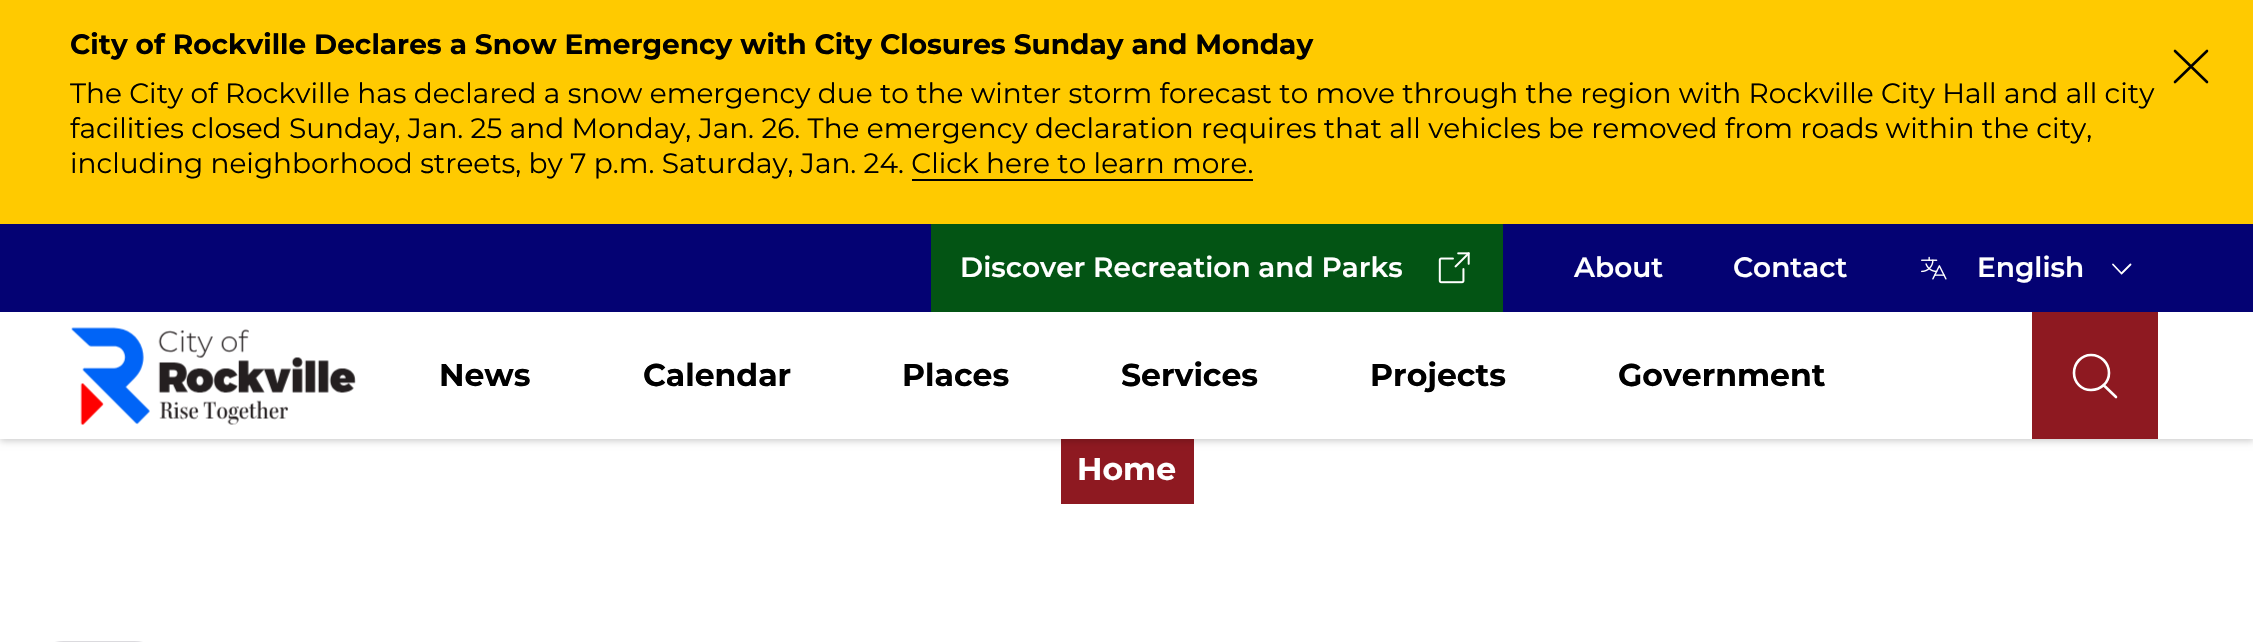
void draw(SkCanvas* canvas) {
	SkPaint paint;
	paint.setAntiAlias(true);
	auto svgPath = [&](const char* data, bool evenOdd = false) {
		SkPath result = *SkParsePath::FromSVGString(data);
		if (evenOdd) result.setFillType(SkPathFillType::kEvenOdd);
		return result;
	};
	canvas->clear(0xffffffff);
	paint.setColor(0xff8e1921);
	canvas->drawRect(SkRect::MakeXYWH(1061, 439, 133, 65), paint);
	paint.setColor(0x33000000);
	paint.setMaskFilter(SkMaskFilter::MakeBlur(kNormal_SkBlurStyle, 3.5));
	canvas->drawRect(SkRect::MakeXYWH(0, 2, 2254, 439), paint);
	paint.setMaskFilter(nullptr);
	paint.setColor(0xffffffff);
	canvas->drawRect(SkRect::MakeXYWH(0, 312, 2253, 127), paint);
	paint.setColor(0xffffca00);
	canvas->drawRect(SkRect::MakeXYWH(0, 0, 2253, 224), paint);
	SkFont f1(fontMgr->matchFamilyStyle("Montserrat", SkFontStyle::Bold()), 28);
	f1.setSubpixel(true);
	paint.setColor(0xff000000);
	canvas->drawString("City of Rockville Declares a Snow Emergency with City Closures Sunday and Monday", 70, 54, f1, paint);
	paint.setStroke(true);
	paint.setStrokeWidth(2.6);
	paint.setStrokeCap(SkPaint::kRound_Cap);
	paint.setStrokeJoin(SkPaint::kRound_Join);
	canvas->drawPath(svgPath("M2207 51L2175 82M2207 82L2175 51"), paint);
	SkFont f2(fontMgr->matchFamilyStyle("Montserrat", SkFontStyle::Normal()), 28);
	f2.setSubpixel(true);
	paint.setStroke(false);
	canvas->drawString("The City of Rockville has declared a snow emergency due to the winter storm forecast to move through the region with Rockville City Hall and all city", 70, 103, f2, paint);
	canvas->drawString("facilities closed Sunday, Jan. 25 and Monday, Jan. 26. The emergency declaration requires that all vehicles be removed from roads within the city,", 70, 138, f2, paint);
	canvas->drawString("including neighborhood streets, by 7 p.m. Saturday, Jan. 24. Click here to learn more.", 70, 173, f2, paint);
	canvas->drawRect(SkRect::MakeXYWH(912, 179, 341, 2), paint);
	paint.setColor(0xff040273);
	canvas->drawRect(SkRect::MakeXYWH(0, 224, 2253, 88), paint);
	paint.setColor(0xff035414);
	canvas->drawRect(SkRect::MakeXYWH(931, 224, 572, 88), paint);
	SkFont f3(fontMgr->matchFamilyStyle("Montserrat", SkFontStyle(600, SkFontStyle::kNormal_Width, SkFontStyle::kUpright_Slant)), 28);
	f3.setSubpixel(true);
	paint.setColor(0xffffffff);
	canvas->drawString("Discover Recreation and Parks", 960, 277, f3, paint);
	canvas->drawImageRect(SkImages::DeferredFromEncodedData(SkData::MakeFromFileName("img1.png")), SkRect::MakeXYWH(1438, 252, 32, 32), SkSamplingOptions());
	canvas->drawString("About", 1574, 277, f3, paint);
	canvas->drawString("Contact", 1733, 277, f3, paint);
	canvas->drawImageRect(SkImages::DeferredFromEncodedData(SkData::MakeFromFileName("img2.png")), SkRect::MakeXYWH(1921, 256, 26, 24), SkSamplingOptions());
	paint.setStroke(true);
	paint.setStrokeWidth(1.8);
	canvas->drawPath(svgPath("M2130.5 264.5L2121.5 273.5L2113 264.5"), paint);
	paint.setStroke(false);
	canvas->drawString("English", 1977, 277, f3, paint);
	canvas->drawImageRect(SkImages::DeferredFromEncodedData(SkData::MakeFromFileName("img3.png")), SkRect::MakeXYWH(71, 327, 285, 98), SkSamplingOptions());
	SkFont f4(fontMgr->matchFamilyStyle("Montserrat", SkFontStyle::Bold()), 31.5);
	f4.setSubpixel(true);
	paint.setColor(0xff000000);
	canvas->drawString("News", 439, 386, f4, paint);
	canvas->drawString("Calendar", 643, 386, f4, paint);
	canvas->drawString("Places", 902, 386, f4, paint);
	canvas->drawString("Services", 1121, 386, f4, paint);
	canvas->drawString("Projects", 1370, 386, f4, paint);
	canvas->drawString("Government", 1618, 386, f4, paint);
	paint.setColor(0xff8e1921);
	canvas->drawRect(SkRect::MakeXYWH(2032, 312, 126, 127), paint);
	paint.setStroke(true);
	paint.setStrokeWidth(2.6);
	paint.setColor(0xffffffff);
	canvas->drawPath(svgPath("M2091 390C2101 390 2109 382.5 2109 373C2109 363 2101 355 2091 355C2081.5 355 2074 363 2074 373C2074 382.5 2081.5 390 2091 390ZM2103.5 385L2116 397"), paint);
	paint.setStroke(false);
	canvas->drawString("Home", 1077, 480, f4, paint);
	paint.setStroke(true);
	paint.setStrokeWidth(2);
	paint.setStrokeCap(SkPaint::kButt_Cap);
	paint.setStrokeJoin(SkPaint::kMiter_Join);
	paint.setColor(0xffdbdade);
	canvas->drawRoundRect(SkRect::MakeXYWH(27, 642, 144, 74), 71.5, 71.5, paint);
}
